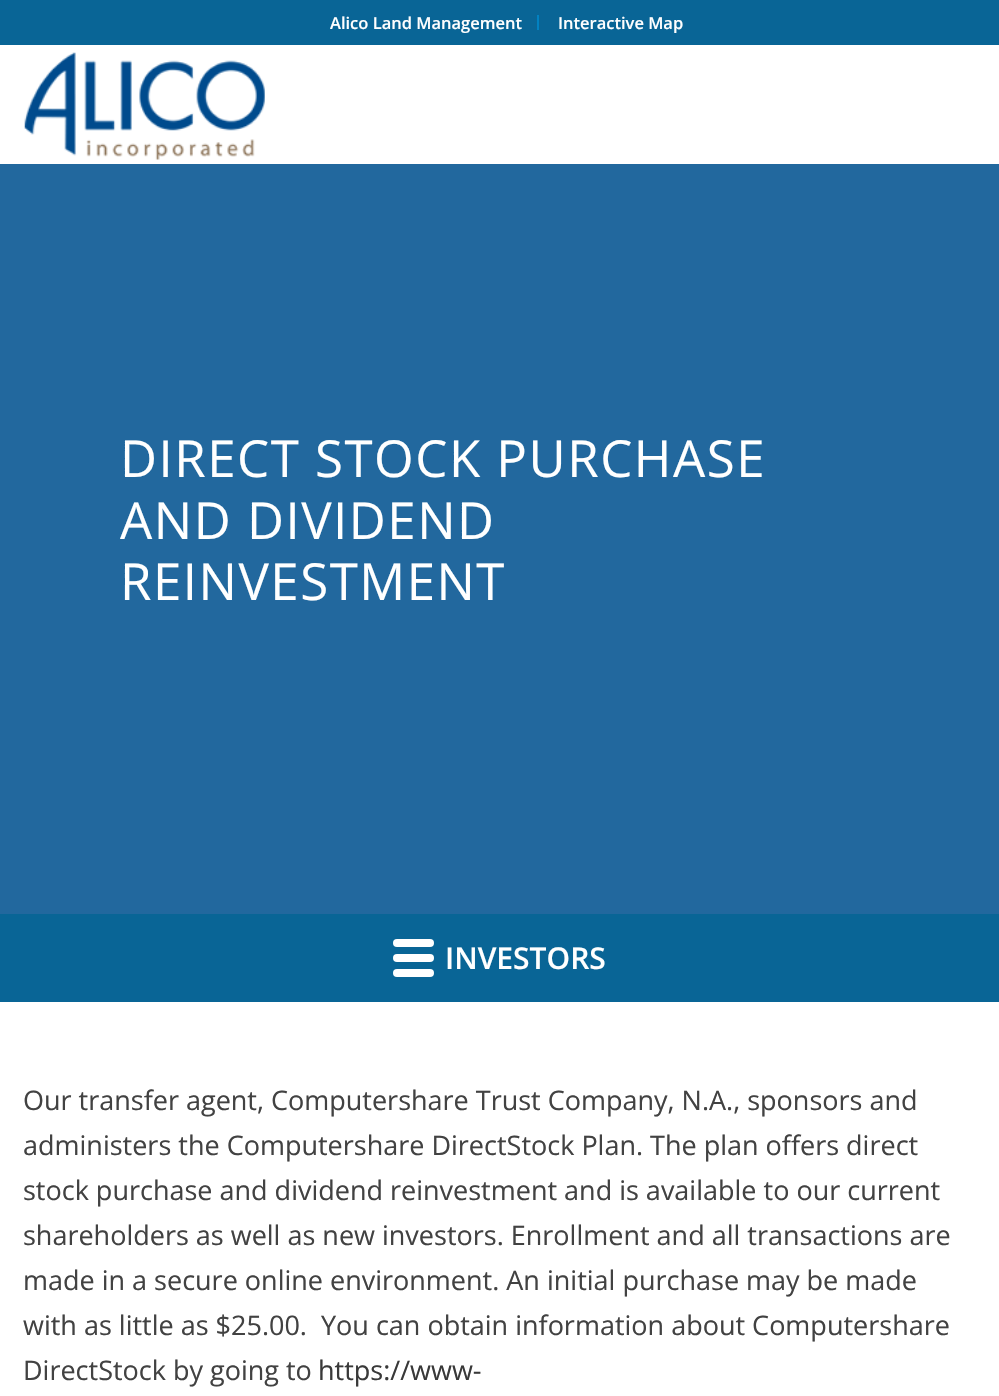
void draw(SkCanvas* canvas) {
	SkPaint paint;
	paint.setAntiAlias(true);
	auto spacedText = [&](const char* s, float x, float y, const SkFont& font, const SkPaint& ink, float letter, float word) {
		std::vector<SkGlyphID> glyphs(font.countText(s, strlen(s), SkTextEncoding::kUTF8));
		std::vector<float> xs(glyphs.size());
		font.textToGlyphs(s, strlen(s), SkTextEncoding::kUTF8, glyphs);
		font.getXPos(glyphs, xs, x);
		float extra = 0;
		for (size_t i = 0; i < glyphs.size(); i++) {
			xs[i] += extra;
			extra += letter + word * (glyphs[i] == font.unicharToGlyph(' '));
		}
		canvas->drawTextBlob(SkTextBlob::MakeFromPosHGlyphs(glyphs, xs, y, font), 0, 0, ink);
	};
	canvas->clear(0xffffffff);
	paint.setColor(0xff096596);
	canvas->drawRect(SkRect::MakeXYWH(0, 0, 999, 45), paint);
	paint.setColor(0xff0282c2);
	canvas->drawRect(SkRect::MakeXYWH(537, 15, 2, 15), paint);
	SkFont f1(fontMgr->matchFamilyStyle("Open Sans", SkFontStyle(600, SkFontStyle::kNormal_Width, SkFontStyle::kUpright_Slant)), 16.5);
	f1.setSubpixel(true);
	paint.setColor(0xffffffff);
	canvas->drawString("Alico Land Management", 330, 29, f1, paint);
	canvas->drawString("Interactive Map", 558, 29, f1, paint);
	canvas->drawImageRect(SkImages::DeferredFromEncodedData(SkData::MakeFromFileName("img1.png")), SkRect::MakeXYWH(24, 52, 241, 108), SkSamplingOptions());
	paint.setColor(0xff22689e);
	canvas->drawRect(SkRect::MakeXYWH(0, 164, 999, 750), paint);
	SkFont f2(fontMgr->matchFamilyStyle("Open Sans", SkFontStyle::Normal()), 51);
	f2.setSubpixel(true);
	paint.setColor(0xffffffff);
	spacedText("DIRECT STOCK PURCHASE", 120, 477, f2, paint, 1.5, 0);
	spacedText("AND DIVIDEND", 120, 539, f2, paint, 1.5, 0);
	spacedText("REINVESTMENT", 120, 600, f2, paint, 1.5, 0);
	paint.setColor(0xff096596);
	canvas->drawRect(SkRect::MakeXYWH(0, 914, 999, 88), paint);
	paint.setColor(0xffffffff);
	canvas->drawRoundRect(SkRect::MakeXYWH(393, 939, 41, 8), 4, 4, paint);
	canvas->drawRoundRect(SkRect::MakeXYWH(393, 954, 41, 8), 4, 4, paint);
	canvas->drawRoundRect(SkRect::MakeXYWH(393, 969, 41, 8), 4, 4, paint);
	SkFont f3(fontMgr->matchFamilyStyle("Open Sans", SkFontStyle(600, SkFontStyle::kNormal_Width, SkFontStyle::kUpright_Slant)), 30);
	f3.setSubpixel(true);
	canvas->drawString("INVESTORS", 445, 969, f3, paint);
	SkFont f4(fontMgr->matchFamilyStyle("Open Sans", SkFontStyle::Normal()), 27);
	f4.setSubpixel(true);
	paint.setColor(0xff424242);
	canvas->drawString("Our transfer agent, Computershare Trust Company, N.A., sponsors and", 23, 1110, f4, paint);
	canvas->drawString("administers the Computershare DirectStock Plan. The plan offers direct", 23, 1155, f4, paint);
	canvas->drawString("stock purchase and dividend reinvestment and is available to our current", 23, 1200, f4, paint);
	canvas->drawString("shareholders as well as new investors. Enrollment and all transactions are", 23, 1245, f4, paint);
	canvas->drawString("made in a secure online environment. An initial purchase may be made", 23, 1290, f4, paint);
	canvas->drawString("with as little as $25.00.  You can obtain information about Computershare", 23, 1335, f4, paint);
	canvas->drawString("DirectStock by going to", 23, 1380, f4, paint);
	paint.setColor(0xff393939);
	canvas->drawString("https://www-", 318, 1380, f4, paint);
}
